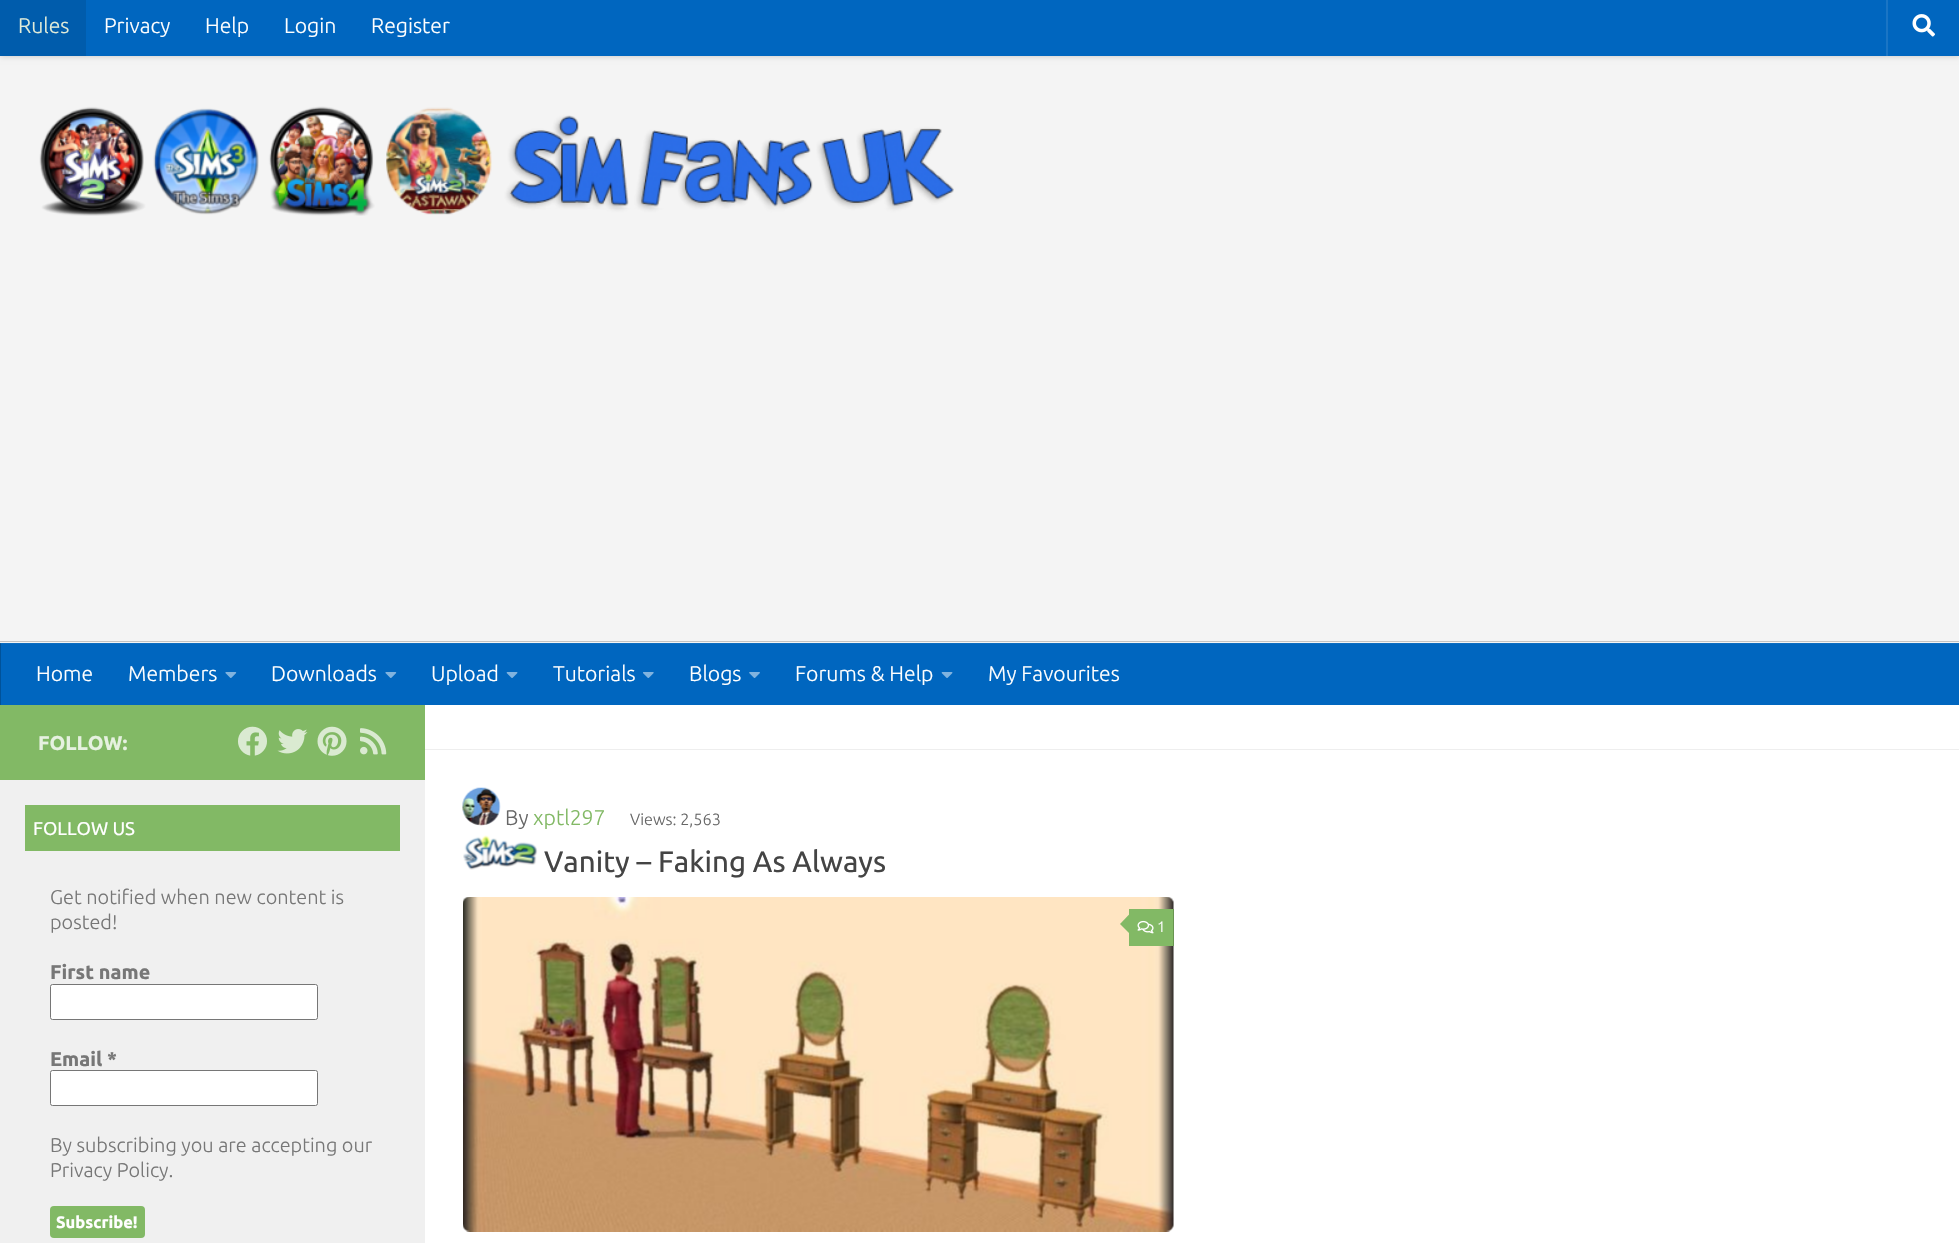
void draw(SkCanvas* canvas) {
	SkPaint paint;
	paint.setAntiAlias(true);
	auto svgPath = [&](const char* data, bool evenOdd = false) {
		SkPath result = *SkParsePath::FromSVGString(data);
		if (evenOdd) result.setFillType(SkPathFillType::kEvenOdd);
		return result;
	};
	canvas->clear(0xfff4f4f4);
	paint.setColor(0x33000000);
	paint.setMaskFilter(SkMaskFilter::MakeBlur(kNormal_SkBlurStyle, 3));
	canvas->drawRect(SkRect::MakeXYWH(0, -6, 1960, 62), paint);
	paint.setMaskFilter(nullptr);
	paint.setColor(0xff0066bf);
	canvas->drawRect(SkRect::MakeXYWH(86, 0, 1873, 56), paint);
	paint.setColor(0xff005cac);
	canvas->drawRect(SkRect::MakeXYWH(0, 0, 86, 56), paint);
	SkFont f1(fontMgr->matchFamilyStyle("Ubuntu", SkFontStyle(300, SkFontStyle::kNormal_Width, SkFontStyle::kUpright_Slant)), 21.25);
	f1.setSubpixel(true);
	paint.setColor(0xffe2ecd9);
	canvas->drawString("Rules", 18, 33, f1, paint);
	paint.setColor(0xffffffff);
	canvas->drawString("Privacy", 104, 33, f1, paint);
	canvas->drawString("Help", 205, 33, f1, paint);
	canvas->drawString("Login", 284, 33, f1, paint);
	canvas->drawString("Register", 371, 33, f1, paint);
	paint.setColor(0xff1a75c5);
	canvas->drawRect(SkRect::MakeXYWH(1886, 0, 2, 56), paint);
	canvas->drawImageRect(SkImages::DeferredFromEncodedData(SkData::MakeFromFileName("img1.png")), SkRect::MakeXYWH(1912, 14, 23, 23), SkSamplingOptions());
	canvas->drawImageRect(SkImages::DeferredFromEncodedData(SkData::MakeFromFileName("img2.png")), SkRect::MakeXYWH(39, 106, 915, 110), SkSamplingOptions());
	paint.setColor(0xffc3c3c3);
	canvas->drawRect(SkRect::MakeXYWH(0, 641, 1959, 1), paint);
	paint.setColor(0xff0066bf);
	canvas->drawRect(SkRect::MakeXYWH(1, 644, 1958, 61), paint);
	paint.setColor(0xff0d6ec2);
	canvas->drawRect(SkRect::MakeXYWH(0, 643, 1959, 1), paint);
	paint.setColor(0xff005299);
	canvas->drawRect(SkRect::MakeXYWH(0, 643, 1, 62), paint);
	paint.setColor(0xff0d5b9e);
	canvas->drawRect(SkRect::MakeXYWH(0, 643, 1, 1), paint);
	paint.setColor(0xffffffff);
	canvas->drawString("Home", 36, 681, f1, paint);
	canvas->drawString("Members", 128, 681, f1, paint);
	canvas->drawImageRect(SkImages::DeferredFromEncodedData(SkData::MakeFromFileName("img3.png")), SkRect::MakeXYWH(225, 672, 12, 6), SkSamplingOptions());
	canvas->drawString("Downloads", 271, 681, f1, paint);
	canvas->drawImageRect(SkImages::DeferredFromEncodedData(SkData::MakeFromFileName("img3.png")), SkRect::MakeXYWH(385, 672, 12, 6), SkSamplingOptions());
	canvas->drawString("Upload", 431, 681, f1, paint);
	canvas->drawImageRect(SkImages::DeferredFromEncodedData(SkData::MakeFromFileName("img4.png")), SkRect::MakeXYWH(506, 672, 12, 6), SkSamplingOptions());
	canvas->drawString("Tutorials", 553, 681, f1, paint);
	canvas->drawImageRect(SkImages::DeferredFromEncodedData(SkData::MakeFromFileName("img5.png")), SkRect::MakeXYWH(643, 672, 11, 6), SkSamplingOptions());
	canvas->drawString("Blogs", 689, 681, f1, paint);
	canvas->drawImageRect(SkImages::DeferredFromEncodedData(SkData::MakeFromFileName("img6.png")), SkRect::MakeXYWH(749, 672, 11, 6), SkSamplingOptions());
	canvas->drawString("Forums & Help", 795, 681, f1, paint);
	canvas->drawImageRect(SkImages::DeferredFromEncodedData(SkData::MakeFromFileName("img4.png")), SkRect::MakeXYWH(941, 672, 12, 6), SkSamplingOptions());
	canvas->drawString("My Favourites", 988, 681, f1, paint);
	canvas->drawRect(SkRect::MakeXYWH(425, 705, 1534, 538), paint);
	paint.setColor(0xff82b965);
	canvas->drawRect(SkRect::MakeXYWH(0, 705, 425, 75), paint);
	SkFont f2(fontMgr->matchFamilyStyle("Ubuntu", SkFontStyle::Bold()), 20);
	f2.setSubpixel(true);
	paint.setColor(0xffe6f1e0);
	canvas->drawString("FOLLOW:", 38, 750, f2, paint);
	canvas->drawImageRect(SkImages::DeferredFromEncodedData(SkData::MakeFromFileName("img7.png")), SkRect::MakeXYWH(238, 726, 29, 30), SkSamplingOptions());
	canvas->drawImageRect(SkImages::DeferredFromEncodedData(SkData::MakeFromFileName("img8.png")), SkRect::MakeXYWH(277, 729, 31, 25), SkSamplingOptions());
	canvas->drawImageRect(SkImages::DeferredFromEncodedData(SkData::MakeFromFileName("img9.png")), SkRect::MakeXYWH(317, 726, 30, 30), SkSamplingOptions());
	canvas->drawImageRect(SkImages::DeferredFromEncodedData(SkData::MakeFromFileName("img10.png")), SkRect::MakeXYWH(360, 728, 27, 27), SkSamplingOptions());
	paint.setColor(0xfff0f0f0);
	canvas->drawRect(SkRect::MakeXYWH(0, 780, 425, 463), paint);
	paint.setColor(0xff82b965);
	canvas->drawRect(SkRect::MakeXYWH(25, 805, 375, 46), paint);
	SkFont f3(fontMgr->matchFamilyStyle("Ubuntu", SkFontStyle::Normal()), 18.5);
	f3.setSubpixel(true);
	paint.setColor(0xffffffff);
	canvas->drawString("FOLLOW US", 33, 835, f3, paint);
	SkFont f4(fontMgr->matchFamilyStyle("Ubuntu", SkFontStyle(300, SkFontStyle::kNormal_Width, SkFontStyle::kUpright_Slant)), 19.9);
	f4.setSubpixel(true);
	paint.setColor(0xff777777);
	canvas->drawString("Get notified when new content is", 50, 904, f4, paint);
	canvas->drawString("posted!", 50, 929, f4, paint);
	SkFont f5(fontMgr->matchFamilyStyle("Ubuntu", SkFontStyle::Bold()), 19.9);
	f5.setSubpixel(true);
	canvas->drawString("First name", 50, 979, f5, paint);
	paint.setColor(0xffffffff);
	canvas->drawRoundRect(SkRect::MakeXYWH(50.5, 984.5, 267, 35), 2, 2, paint);
	paint.setStroke(true);
	paint.setStrokeWidth(1);
	paint.setColor(0xff767676);
	canvas->drawRoundRect(SkRect::MakeXYWH(50.5, 984.5, 267, 35), 2, 2, paint);
	paint.setStroke(false);
	paint.setColor(0xff777777);
	canvas->drawString("Email *", 50, 1066, f5, paint);
	paint.setColor(0xffffffff);
	canvas->drawRoundRect(SkRect::MakeXYWH(50.5, 1070.5, 267, 35), 2, 2, paint);
	paint.setStroke(true);
	paint.setColor(0xff767676);
	canvas->drawRoundRect(SkRect::MakeXYWH(50.5, 1070.5, 267, 35), 2, 2, paint);
	paint.setStroke(false);
	paint.setColor(0xff777777);
	canvas->drawString("By subscribing you are accepting our", 50, 1152, f4, paint);
	canvas->drawString("Privacy Policy.", 50, 1177, f4, paint);
	paint.setColor(0xff82b965);
	canvas->drawRoundRect(SkRect::MakeXYWH(50, 1206, 95, 32), 4, 4, paint);
	SkFont f6(fontMgr->matchFamilyStyle("Ubuntu", SkFontStyle::Bold()), 16.5);
	f6.setSubpixel(true);
	paint.setColor(0xffffffff);
	canvas->drawString("Subscribe!", 56, 1228, f6, paint);
	paint.setColor(0xffeeeeee);
	canvas->drawRect(SkRect::MakeXYWH(425, 749, 1534, 1), paint);
	canvas->drawImageRect(SkImages::DeferredFromEncodedData(SkData::MakeFromFileName("img11.png")), SkRect::MakeXYWH(462, 787, 39, 39), SkSamplingOptions());
	paint.setColor(0xff666666);
	canvas->drawString("By", 505, 825, f1, paint);
	paint.setColor(0xff82b965);
	canvas->drawString("xptl297", 533, 825, f1, paint);
	SkFont f7(fontMgr->matchFamilyStyle("Ubuntu", SkFontStyle(300, SkFontStyle::kNormal_Width, SkFontStyle::kUpright_Slant)), 16.25);
	f7.setSubpixel(true);
	paint.setColor(0xff666666);
	canvas->drawString("Views: 2,563", 630, 825, f7, paint);
	canvas->drawImageRect(SkImages::DeferredFromEncodedData(SkData::MakeFromFileName("img12.png")), SkRect::MakeXYWH(463, 835, 75, 35), SkSamplingOptions());
	SkFont f8(fontMgr->matchFamilyStyle("Ubuntu", SkFontStyle::Normal()), 29.5);
	f8.setSubpixel(true);
	paint.setColor(0xff444444);
	canvas->drawString("Vanity – Faking As Always", 544, 872, f8, paint);
	canvas->drawImageRect(SkImages::DeferredFromEncodedData(SkData::MakeFromFileName("img13.png")), SkRect::MakeXYWH(463, 897, 711, 335), SkSamplingOptions());
	paint.setColor(0xff82b965);
	canvas->drawRect(SkRect::MakeXYWH(1129, 909, 44, 37), paint);
	paint.setColor(0xff689451);
	canvas->drawRect(SkRect::MakeXYWH(1173, 909, 1, 37), paint);
	paint.setColor(0xff82b965);
	canvas->drawPath(svgPath("M1131 912.5V935L1120 924Z"), paint);
	canvas->drawImageRect(SkImages::DeferredFromEncodedData(SkData::MakeFromFileName("img14.png")), SkRect::MakeXYWH(1137, 920, 17, 14), SkSamplingOptions());
	SkFont f9(fontMgr->matchFamilyStyle("Ubuntu", SkFontStyle(300, SkFontStyle::kNormal_Width, SkFontStyle::kUpright_Slant)), 15);
	f9.setSubpixel(true);
	paint.setColor(0xffffffff);
	canvas->drawString("1", 1157, 932, f9, paint);
}
